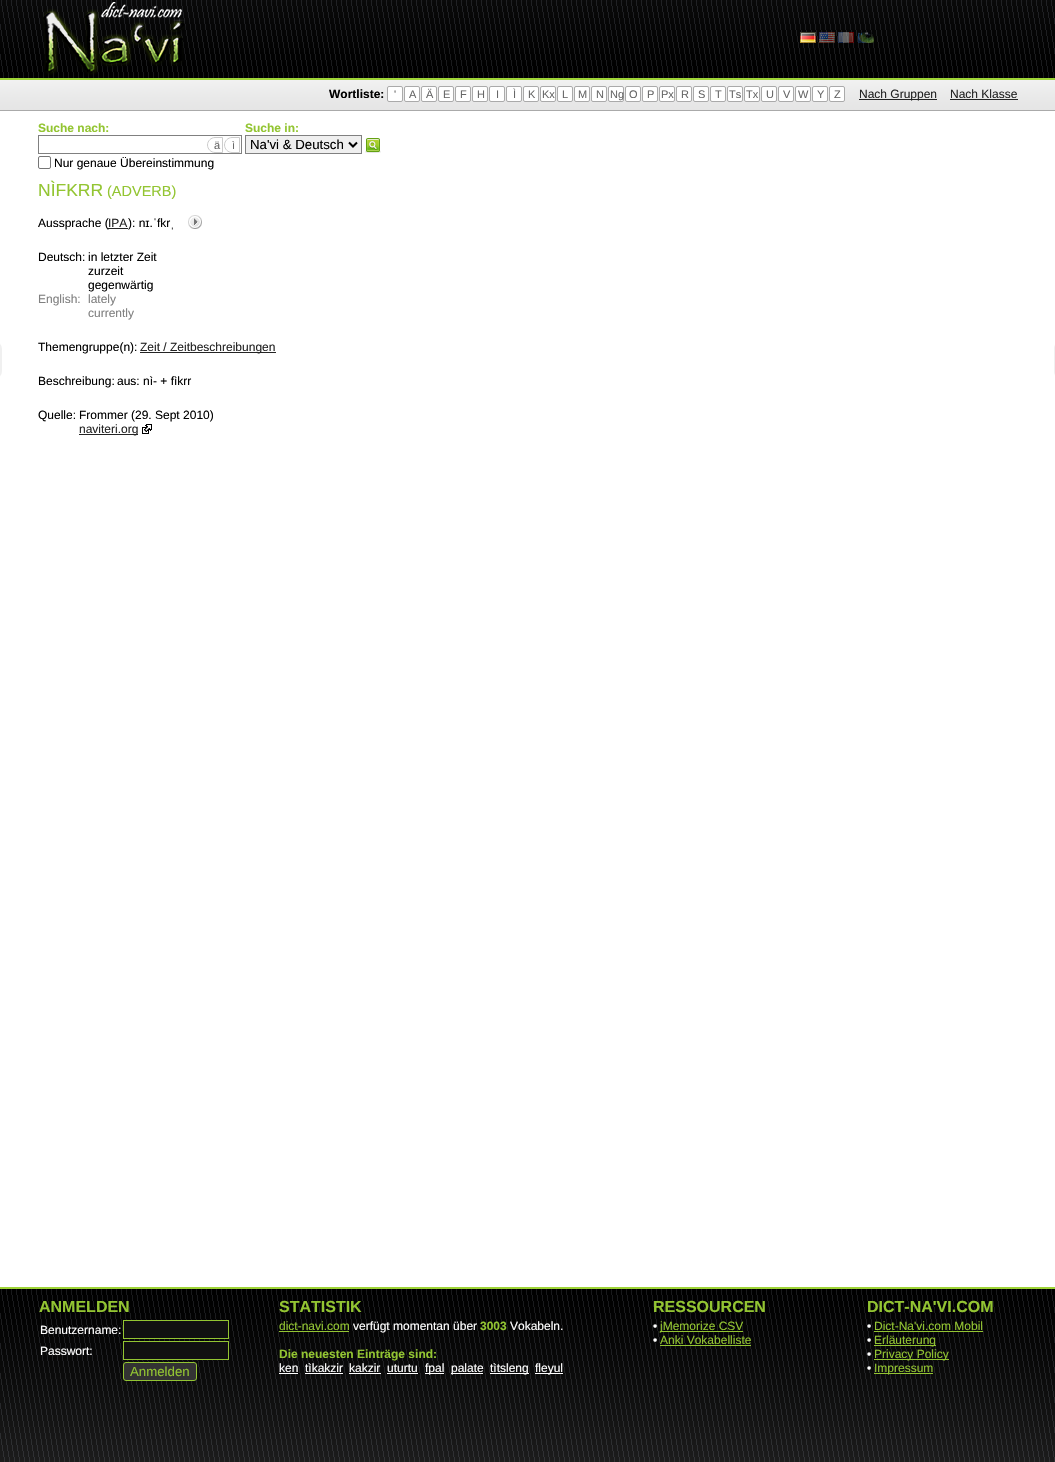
void draw(SkCanvas* canvas) {
	SkPaint paint;
	paint.setAntiAlias(true);
	auto svgPath = [&](const char* data, bool evenOdd = false) {
		SkPath result = *SkParsePath::FromSVGString(data);
		if (evenOdd) result.setFillType(SkPathFillType::kEvenOdd);
		return result;
	};
	canvas->clear(0xffffffff);
	canvas->drawImageRect(SkImages::DeferredFromEncodedData(SkData::MakeFromFileName("img1.png")), SkRect::MakeXYWH(0, 0, 1055, 80), SkSamplingOptions());
	canvas->drawImageRect(SkImages::DeferredFromEncodedData(SkData::MakeFromFileName("img2.png")), SkRect::MakeXYWH(42, 2, 144, 77), SkSamplingOptions());
	canvas->drawImageRect(SkImages::DeferredFromEncodedData(SkData::MakeFromFileName("img3.png")), SkRect::MakeXYWH(800, 32, 16, 11), SkSamplingOptions());
	canvas->drawImageRect(SkImages::DeferredFromEncodedData(SkData::MakeFromFileName("img4.png")), SkRect::MakeXYWH(819, 32, 16, 11), SkSamplingOptions());
	canvas->drawImageRect(SkImages::DeferredFromEncodedData(SkData::MakeFromFileName("img5.png")), SkRect::MakeXYWH(838, 32, 16, 11), SkSamplingOptions());
	canvas->drawImageRect(SkImages::DeferredFromEncodedData(SkData::MakeFromFileName("img6.png")), SkRect::MakeXYWH(858, 32, 16, 11), SkSamplingOptions());
	canvas->drawImageRect(SkImages::DeferredFromEncodedData(SkData::MakeFromFileName("img7.png")), SkRect::MakeXYWH(0, 80, 1055, 30), SkSamplingOptions());
	paint.setColor(0xffaaaaaa);
	canvas->drawRect(SkRect::MakeXYWH(0, 110, 1055, 1), paint);
	SkFont f1(fontMgr->matchFamilyStyle("Liberation Sans", SkFontStyle::Bold()), 12);
	f1.setSubpixel(true);
	paint.setColor(0xff000000);
	canvas->drawString("Wortliste:", 329, 98, f1, paint);
	paint.setColor(0xffffffff);
	canvas->drawRoundRect(SkRect::MakeXYWH(387.5, 86.5, 15, 15), 1.5, 1.5, paint);
	paint.setStroke(true);
	paint.setStrokeWidth(1);
	paint.setColor(0xffaaaaaa);
	canvas->drawRoundRect(SkRect::MakeXYWH(387.5, 86.5, 15, 15), 1.5, 1.5, paint);
	SkFont f2(fontMgr->matchFamilyStyle("Liberation Sans", SkFontStyle::Normal()), 11);
	f2.setSubpixel(true);
	paint.setStroke(false);
	paint.setColor(0xff666666);
	canvas->drawString("'", 394, 98, f2, paint);
	paint.setColor(0xffffffff);
	canvas->drawRoundRect(SkRect::MakeXYWH(404.5, 86.5, 15, 15), 1.5, 1.5, paint);
	paint.setStroke(true);
	paint.setColor(0xffaaaaaa);
	canvas->drawRoundRect(SkRect::MakeXYWH(404.5, 86.5, 15, 15), 1.5, 1.5, paint);
	paint.setStroke(false);
	paint.setColor(0xff666666);
	canvas->drawString("A", 409, 98, f2, paint);
	paint.setColor(0xffffffff);
	canvas->drawRoundRect(SkRect::MakeXYWH(421.5, 86.5, 15, 15), 1.5, 1.5, paint);
	paint.setStroke(true);
	paint.setColor(0xffaaaaaa);
	canvas->drawRoundRect(SkRect::MakeXYWH(421.5, 86.5, 15, 15), 1.5, 1.5, paint);
	paint.setStroke(false);
	paint.setColor(0xff666666);
	canvas->drawString("Ä", 426, 98, f2, paint);
	paint.setColor(0xffffffff);
	canvas->drawRoundRect(SkRect::MakeXYWH(438.5, 86.5, 15, 15), 1.5, 1.5, paint);
	paint.setStroke(true);
	paint.setColor(0xffaaaaaa);
	canvas->drawRoundRect(SkRect::MakeXYWH(438.5, 86.5, 15, 15), 1.5, 1.5, paint);
	paint.setStroke(false);
	paint.setColor(0xff666666);
	canvas->drawString("E", 443, 98, f2, paint);
	paint.setColor(0xffffffff);
	canvas->drawRoundRect(SkRect::MakeXYWH(455.5, 86.5, 15, 15), 1.5, 1.5, paint);
	paint.setStroke(true);
	paint.setColor(0xffaaaaaa);
	canvas->drawRoundRect(SkRect::MakeXYWH(455.5, 86.5, 15, 15), 1.5, 1.5, paint);
	paint.setStroke(false);
	paint.setColor(0xff666666);
	canvas->drawString("F", 460, 98, f2, paint);
	paint.setColor(0xffffffff);
	canvas->drawRoundRect(SkRect::MakeXYWH(472.5, 86.5, 15, 15), 1.5, 1.5, paint);
	paint.setStroke(true);
	paint.setColor(0xffaaaaaa);
	canvas->drawRoundRect(SkRect::MakeXYWH(472.5, 86.5, 15, 15), 1.5, 1.5, paint);
	paint.setStroke(false);
	paint.setColor(0xff666666);
	canvas->drawString("H", 477, 98, f2, paint);
	paint.setColor(0xffffffff);
	canvas->drawRoundRect(SkRect::MakeXYWH(489.5, 86.5, 15, 15), 1.5, 1.5, paint);
	paint.setStroke(true);
	paint.setColor(0xffaaaaaa);
	canvas->drawRoundRect(SkRect::MakeXYWH(489.5, 86.5, 15, 15), 1.5, 1.5, paint);
	paint.setStroke(false);
	paint.setColor(0xff666666);
	canvas->drawString("I", 496, 98, f2, paint);
	paint.setColor(0xffffffff);
	canvas->drawRoundRect(SkRect::MakeXYWH(506.5, 86.5, 15, 15), 1.5, 1.5, paint);
	paint.setStroke(true);
	paint.setColor(0xffaaaaaa);
	canvas->drawRoundRect(SkRect::MakeXYWH(506.5, 86.5, 15, 15), 1.5, 1.5, paint);
	paint.setStroke(false);
	paint.setColor(0xff666666);
	canvas->drawString("Ì", 513, 98, f2, paint);
	paint.setColor(0xffffffff);
	canvas->drawRoundRect(SkRect::MakeXYWH(523.5, 86.5, 15, 15), 1.5, 1.5, paint);
	paint.setStroke(true);
	paint.setColor(0xffaaaaaa);
	canvas->drawRoundRect(SkRect::MakeXYWH(523.5, 86.5, 15, 15), 1.5, 1.5, paint);
	paint.setStroke(false);
	paint.setColor(0xff666666);
	canvas->drawString("K", 528, 98, f2, paint);
	paint.setColor(0xffffffff);
	canvas->drawRoundRect(SkRect::MakeXYWH(540.5, 86.5, 15, 15), 1.5, 1.5, paint);
	paint.setStroke(true);
	paint.setColor(0xffaaaaaa);
	canvas->drawRoundRect(SkRect::MakeXYWH(540.5, 86.5, 15, 15), 1.5, 1.5, paint);
	paint.setStroke(false);
	paint.setColor(0xff666666);
	canvas->drawString("Kx", 542, 98, f2, paint);
	paint.setColor(0xffffffff);
	canvas->drawRoundRect(SkRect::MakeXYWH(557.5, 86.5, 15, 15), 1.5, 1.5, paint);
	paint.setStroke(true);
	paint.setColor(0xffaaaaaa);
	canvas->drawRoundRect(SkRect::MakeXYWH(557.5, 86.5, 15, 15), 1.5, 1.5, paint);
	paint.setStroke(false);
	paint.setColor(0xff666666);
	canvas->drawString("L", 562, 98, f2, paint);
	paint.setColor(0xffffffff);
	canvas->drawRoundRect(SkRect::MakeXYWH(574.5, 86.5, 15, 15), 1.5, 1.5, paint);
	paint.setStroke(true);
	paint.setColor(0xffaaaaaa);
	canvas->drawRoundRect(SkRect::MakeXYWH(574.5, 86.5, 15, 15), 1.5, 1.5, paint);
	paint.setStroke(false);
	paint.setColor(0xff666666);
	canvas->drawString("M", 578, 98, f2, paint);
	paint.setColor(0xffffffff);
	canvas->drawRoundRect(SkRect::MakeXYWH(591.5, 86.5, 15, 15), 1.5, 1.5, paint);
	paint.setStroke(true);
	paint.setColor(0xffaaaaaa);
	canvas->drawRoundRect(SkRect::MakeXYWH(591.5, 86.5, 15, 15), 1.5, 1.5, paint);
	paint.setStroke(false);
	paint.setColor(0xff666666);
	canvas->drawString("N", 596, 98, f2, paint);
	paint.setColor(0xffffffff);
	canvas->drawRoundRect(SkRect::MakeXYWH(608.5, 86.5, 15, 15), 1.5, 1.5, paint);
	paint.setStroke(true);
	paint.setColor(0xffaaaaaa);
	canvas->drawRoundRect(SkRect::MakeXYWH(608.5, 86.5, 15, 15), 1.5, 1.5, paint);
	paint.setStroke(false);
	paint.setColor(0xff666666);
	canvas->drawString("Ng", 610, 98, f2, paint);
	paint.setColor(0xffffffff);
	canvas->drawRoundRect(SkRect::MakeXYWH(625.5, 86.5, 15, 15), 1.5, 1.5, paint);
	paint.setStroke(true);
	paint.setColor(0xffaaaaaa);
	canvas->drawRoundRect(SkRect::MakeXYWH(625.5, 86.5, 15, 15), 1.5, 1.5, paint);
	paint.setStroke(false);
	paint.setColor(0xff666666);
	canvas->drawString("O", 629, 98, f2, paint);
	paint.setColor(0xffffffff);
	canvas->drawRoundRect(SkRect::MakeXYWH(642.5, 86.5, 15, 15), 1.5, 1.5, paint);
	paint.setStroke(true);
	paint.setColor(0xffaaaaaa);
	canvas->drawRoundRect(SkRect::MakeXYWH(642.5, 86.5, 15, 15), 1.5, 1.5, paint);
	paint.setStroke(false);
	paint.setColor(0xff666666);
	canvas->drawString("P", 647, 98, f2, paint);
	paint.setColor(0xffffffff);
	canvas->drawRoundRect(SkRect::MakeXYWH(659.5, 86.5, 15, 15), 1.5, 1.5, paint);
	paint.setStroke(true);
	paint.setColor(0xffaaaaaa);
	canvas->drawRoundRect(SkRect::MakeXYWH(659.5, 86.5, 15, 15), 1.5, 1.5, paint);
	paint.setStroke(false);
	paint.setColor(0xff666666);
	canvas->drawString("Px", 661, 98, f2, paint);
	paint.setColor(0xffffffff);
	canvas->drawRoundRect(SkRect::MakeXYWH(676.5, 86.5, 15, 15), 1.5, 1.5, paint);
	paint.setStroke(true);
	paint.setColor(0xffaaaaaa);
	canvas->drawRoundRect(SkRect::MakeXYWH(676.5, 86.5, 15, 15), 1.5, 1.5, paint);
	paint.setStroke(false);
	paint.setColor(0xff666666);
	canvas->drawString("R", 681, 98, f2, paint);
	paint.setColor(0xffffffff);
	canvas->drawRoundRect(SkRect::MakeXYWH(693.5, 86.5, 15, 15), 1.5, 1.5, paint);
	paint.setStroke(true);
	paint.setColor(0xffaaaaaa);
	canvas->drawRoundRect(SkRect::MakeXYWH(693.5, 86.5, 15, 15), 1.5, 1.5, paint);
	paint.setStroke(false);
	paint.setColor(0xff666666);
	canvas->drawString("S", 698, 98, f2, paint);
	paint.setColor(0xffffffff);
	canvas->drawRoundRect(SkRect::MakeXYWH(710.5, 86.5, 15, 15), 1.5, 1.5, paint);
	paint.setStroke(true);
	paint.setColor(0xffaaaaaa);
	canvas->drawRoundRect(SkRect::MakeXYWH(710.5, 86.5, 15, 15), 1.5, 1.5, paint);
	paint.setStroke(false);
	paint.setColor(0xff666666);
	canvas->drawString("T", 715, 98, f2, paint);
	paint.setColor(0xffffffff);
	canvas->drawRoundRect(SkRect::MakeXYWH(727.5, 86.5, 15, 15), 1.5, 1.5, paint);
	paint.setStroke(true);
	paint.setColor(0xffaaaaaa);
	canvas->drawRoundRect(SkRect::MakeXYWH(727.5, 86.5, 15, 15), 1.5, 1.5, paint);
	paint.setStroke(false);
	paint.setColor(0xff666666);
	canvas->drawString("Ts", 729, 98, f2, paint);
	paint.setColor(0xffffffff);
	canvas->drawRoundRect(SkRect::MakeXYWH(744.5, 86.5, 15, 15), 1.5, 1.5, paint);
	paint.setStroke(true);
	paint.setColor(0xffaaaaaa);
	canvas->drawRoundRect(SkRect::MakeXYWH(744.5, 86.5, 15, 15), 1.5, 1.5, paint);
	paint.setStroke(false);
	paint.setColor(0xff666666);
	canvas->drawString("Tx", 746, 98, f2, paint);
	paint.setColor(0xffffffff);
	canvas->drawRoundRect(SkRect::MakeXYWH(761.5, 86.5, 15, 15), 1.5, 1.5, paint);
	paint.setStroke(true);
	paint.setColor(0xffaaaaaa);
	canvas->drawRoundRect(SkRect::MakeXYWH(761.5, 86.5, 15, 15), 1.5, 1.5, paint);
	paint.setStroke(false);
	paint.setColor(0xff666666);
	canvas->drawString("U", 766, 98, f2, paint);
	paint.setColor(0xffffffff);
	canvas->drawRoundRect(SkRect::MakeXYWH(778.5, 86.5, 15, 15), 1.5, 1.5, paint);
	paint.setStroke(true);
	paint.setColor(0xffaaaaaa);
	canvas->drawRoundRect(SkRect::MakeXYWH(778.5, 86.5, 15, 15), 1.5, 1.5, paint);
	paint.setStroke(false);
	paint.setColor(0xff666666);
	canvas->drawString("V", 783, 98, f2, paint);
	paint.setColor(0xffffffff);
	canvas->drawRoundRect(SkRect::MakeXYWH(795.5, 86.5, 15, 15), 1.5, 1.5, paint);
	paint.setStroke(true);
	paint.setColor(0xffaaaaaa);
	canvas->drawRoundRect(SkRect::MakeXYWH(795.5, 86.5, 15, 15), 1.5, 1.5, paint);
	paint.setStroke(false);
	paint.setColor(0xff666666);
	canvas->drawString("W", 798, 98, f2, paint);
	paint.setColor(0xffffffff);
	canvas->drawRoundRect(SkRect::MakeXYWH(812.5, 86.5, 15, 15), 1.5, 1.5, paint);
	paint.setStroke(true);
	paint.setColor(0xffaaaaaa);
	canvas->drawRoundRect(SkRect::MakeXYWH(812.5, 86.5, 15, 15), 1.5, 1.5, paint);
	paint.setStroke(false);
	paint.setColor(0xff666666);
	canvas->drawString("Y", 817, 98, f2, paint);
	paint.setColor(0xffffffff);
	canvas->drawRoundRect(SkRect::MakeXYWH(829.5, 86.5, 15, 15), 1.5, 1.5, paint);
	paint.setStroke(true);
	paint.setColor(0xffaaaaaa);
	canvas->drawRoundRect(SkRect::MakeXYWH(829.5, 86.5, 15, 15), 1.5, 1.5, paint);
	paint.setStroke(false);
	paint.setColor(0xff666666);
	canvas->drawString("Z", 834, 98, f2, paint);
	paint.setColor(0xff242424);
	canvas->drawRect(SkRect::MakeXYWH(859, 99, 78, 1), paint);
	SkFont f3(fontMgr->matchFamilyStyle("Liberation Sans", SkFontStyle::Normal()), 12);
	f3.setSubpixel(true);
	canvas->drawString("Nach Gruppen", 859, 98, f3, paint);
	canvas->drawString("Nach Klasse", 950, 98, f3, paint);
	canvas->drawRect(SkRect::MakeXYWH(950, 99, 68, 1), paint);
	paint.setColor(0xff93c532);
	canvas->drawString("Suche nach:", 38, 132, f1, paint);
	paint.setStroke(true);
	paint.setColor(0xff808080);
	canvas->drawRect(SkRect::MakeXYWH(38.5, 135.5, 203, 18), paint);
	paint.setColor(0xffcccccc);
	canvas->drawPath(svgPath("M215 137.5H222.5V152.5H215C211 152.5 207.5 149 207.5 145C207.5 141 211 137.5 215 137.5Z"), paint);
	paint.setStroke(false);
	paint.setColor(0xff666666);
	canvas->drawString("ä", 214, 149, f2, paint);
	paint.setStroke(true);
	paint.setColor(0xffcccccc);
	canvas->drawPath(svgPath("M232 137.5H239.5V152.5H232C228 152.5 224.5 149 224.5 145C224.5 141 228 137.5 232 137.5Z"), paint);
	paint.setStroke(false);
	paint.setColor(0xff666666);
	canvas->drawString("ì", 232, 149, f2, paint);
	paint.setStroke(true);
	paint.setColor(0xff767676);
	canvas->drawRoundRect(SkRect::MakeXYWH(38.5, 156.5, 12, 12), 1.5, 1.5, paint);
	paint.setStroke(false);
	paint.setColor(0xff000000);
	canvas->drawString("Nur genaue Übereinstimmung", 54, 167, f3, paint);
	paint.setColor(0xff93c532);
	canvas->drawString("Suche in:", 245, 132, f1, paint);
	paint.setColor(0xffefefef);
	canvas->drawRect(SkRect::MakeXYWH(245.5, 135.5, 116, 18), paint);
	paint.setStroke(true);
	paint.setColor(0xff808080);
	canvas->drawRect(SkRect::MakeXYWH(245.5, 135.5, 116, 18), paint);
	paint.setStrokeWidth(2);
	paint.setColor(0xff000000);
	canvas->drawPath(svgPath("M349 142.5L353 146.5L357 142.5"), paint);
	SkFont f4(fontMgr->matchFamilyStyle("Liberation Sans", SkFontStyle::Normal()), 13.25);
	f4.setSubpixel(true);
	paint.setStroke(false);
	canvas->drawString("Na'vi & Deutsch", 250, 149, f4, paint);
	canvas->drawImageRect(SkImages::DeferredFromEncodedData(SkData::MakeFromFileName("img8.png")), SkRect::MakeXYWH(365, 138, 16, 15), SkSamplingOptions());
	SkFont f5(fontMgr->matchFamilyStyle("Liberation Sans", SkFontStyle::Normal()), 17.5);
	f5.setSubpixel(true);
	paint.setColor(0xff93c532);
	canvas->drawString("NÌFKRR", 38, 196, f5, paint);
	SkFont f6(fontMgr->matchFamilyStyle("Liberation Sans", SkFontStyle::Normal()), 14.5);
	f6.setSubpixel(true);
	canvas->drawString("(ADVERB)", 107, 196, f6, paint);
	paint.setStroke(true);
	paint.setStrokeWidth(4);
	paint.setColor(0xfff0f0f0);
	canvas->drawRoundRect(SkRect::MakeXYWH(-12, 343, 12, 34), 8, 8, paint);
	paint.setStroke(false);
	paint.setColor(0xff000000);
	canvas->drawString("Aussprache (", 38, 227, f3, paint);
	paint.setColor(0xff242424);
	canvas->drawString("IPA", 108, 227, f3, paint);
	canvas->drawRect(SkRect::MakeXYWH(108, 228, 20, 1), paint);
	paint.setColor(0xff000000);
	canvas->drawString("): nɪ.ˈfkrˌ", 128, 227, f3, paint);
	canvas->drawImageRect(SkImages::DeferredFromEncodedData(SkData::MakeFromFileName("img9.png")), SkRect::MakeXYWH(188, 215, 14, 14), SkSamplingOptions());
	canvas->drawString("Deutsch:", 38, 261, f3, paint);
	canvas->drawString("in letzter Zeit", 88, 261, f3, paint);
	canvas->drawString("zurzeit", 88, 275, f3, paint);
	canvas->drawString("gegenwärtig", 88, 289, f3, paint);
	paint.setColor(0xff808080);
	canvas->drawString("English:", 38, 303, f3, paint);
	canvas->drawString("lately", 88, 303, f3, paint);
	canvas->drawString("currently", 88, 317, f3, paint);
	paint.setColor(0xff000000);
	canvas->drawString("Themengruppe(n):", 38, 351, f3, paint);
	paint.setColor(0xff242424);
	canvas->drawRect(SkRect::MakeXYWH(140, 352, 136, 1), paint);
	canvas->drawString("Zeit / Zeitbeschreibungen", 140, 351, f3, paint);
	paint.setColor(0xff000000);
	canvas->drawString("Beschreibung:", 38, 385, f3, paint);
	canvas->drawString("aus: nì- + fìkrr", 117, 385, f3, paint);
	canvas->drawString("Quelle:", 38, 419, f3, paint);
	canvas->drawString("Frommer (29. Sept 2010)", 79, 419, f3, paint);
	paint.setColor(0xff242424);
	canvas->drawRect(SkRect::MakeXYWH(79, 434, 59, 1), paint);
	canvas->drawString("naviteri.org", 79, 433, f3, paint);
	canvas->drawImageRect(SkImages::DeferredFromEncodedData(SkData::MakeFromFileName("img10.png")), SkRect::MakeXYWH(142, 424, 10, 10), SkSamplingOptions());
	paint.setStroke(true);
	paint.setColor(0xfff0f0f0);
	canvas->drawRoundRect(SkRect::MakeXYWH(1056, 343, 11, 34), 8, 8, paint);
	canvas->drawImageRect(SkImages::DeferredFromEncodedData(SkData::MakeFromFileName("img11.png")), SkRect::MakeXYWH(0, 1287, 1055, 175), SkSamplingOptions());
	SkFont f7(fontMgr->matchFamilyStyle("Liberation Sans", SkFontStyle::Bold()), 16);
	f7.setSubpixel(true);
	paint.setStroke(false);
	paint.setColor(0xff93c532);
	canvas->drawString("ANMELDEN", 39, 1312, f7, paint);
	paint.setColor(0xffffffff);
	canvas->drawString("Benutzername:", 40, 1334, f3, paint);
	paint.setColor(0xff111111);
	canvas->drawRect(SkRect::MakeXYWH(123.5, 1320.5, 105, 18), paint);
	paint.setStroke(true);
	paint.setStrokeWidth(1);
	paint.setColor(0xff93c532);
	canvas->drawRect(SkRect::MakeXYWH(123.5, 1320.5, 105, 18), paint);
	paint.setStroke(false);
	paint.setColor(0xffffffff);
	canvas->drawString("Passwort:", 40, 1355, f3, paint);
	paint.setColor(0xff111111);
	canvas->drawRect(SkRect::MakeXYWH(123.5, 1341.5, 105, 18), paint);
	paint.setStroke(true);
	paint.setColor(0xff93c532);
	canvas->drawRect(SkRect::MakeXYWH(123.5, 1341.5, 105, 18), paint);
	paint.setStroke(false);
	paint.setColor(0xff333333);
	canvas->drawRoundRect(SkRect::MakeXYWH(123.5, 1362.5, 73, 18), 2.5, 2.5, paint);
	paint.setStroke(true);
	paint.setColor(0xff93c532);
	canvas->drawRoundRect(SkRect::MakeXYWH(123.5, 1362.5, 73, 18), 2.5, 2.5, paint);
	paint.setStroke(false);
	canvas->drawString("Anmelden", 130, 1376, f4, paint);
	canvas->drawString("STATISTIK", 279, 1312, f7, paint);
	canvas->drawString("dict-navi.com", 279, 1330, f3, paint);
	canvas->drawRect(SkRect::MakeXYWH(279, 1331, 70, 1), paint);
	paint.setColor(0xffffffff);
	canvas->drawString("verfügt momentan über", 353, 1330, f3, paint);
	paint.setColor(0xff93c532);
	canvas->drawString("3003", 480, 1330, f1, paint);
	paint.setColor(0xffffffff);
	canvas->drawString("Vokabeln.", 510, 1330, f3, paint);
	paint.setColor(0xff93c532);
	canvas->drawString("Die neuesten Einträge sind:", 279, 1358, f1, paint);
	paint.setColor(0xffffffff);
	canvas->drawString("ken", 279, 1372, f3, paint);
	canvas->drawRect(SkRect::MakeXYWH(279, 1373, 19, 1), paint);
	canvas->drawString("tìkakzir", 305, 1372, f3, paint);
	canvas->drawRect(SkRect::MakeXYWH(305, 1373, 38, 1), paint);
	canvas->drawString("kakzir", 349, 1372, f3, paint);
	canvas->drawRect(SkRect::MakeXYWH(349, 1373, 32, 1), paint);
	canvas->drawString("uturtu", 387, 1372, f3, paint);
	canvas->drawRect(SkRect::MakeXYWH(387, 1373, 31, 1), paint);
	canvas->drawRect(SkRect::MakeXYWH(425, 1373, 19, 1), paint);
	canvas->drawString("fpal", 425, 1372, f3, paint);
	canvas->drawRect(SkRect::MakeXYWH(451, 1373, 32, 1), paint);
	canvas->drawString("palate", 451, 1372, f3, paint);
	canvas->drawRect(SkRect::MakeXYWH(490, 1373, 39, 1), paint);
	canvas->drawString("tìtsleng", 490, 1372, f3, paint);
	canvas->drawRect(SkRect::MakeXYWH(535, 1373, 28, 1), paint);
	canvas->drawString("fleyul", 535, 1372, f3, paint);
	paint.setColor(0xff93c532);
	canvas->drawString("RESSOURCEN", 653, 1312, f7, paint);
	paint.setColor(0xffffffff);
	canvas->drawString("•", 653, 1330, f3, paint);
	paint.setColor(0xff93c532);
	canvas->drawRect(SkRect::MakeXYWH(660, 1331, 83, 1), paint);
	canvas->drawString("jMemorize CSV", 660, 1330, f3, paint);
	paint.setColor(0xffffffff);
	canvas->drawString("•", 653, 1344, f3, paint);
	paint.setColor(0xff93c532);
	canvas->drawString("Anki Vokabelliste", 660, 1344, f3, paint);
	canvas->drawRect(SkRect::MakeXYWH(660, 1345, 91, 1), paint);
	canvas->drawString("DICT-NA'VI.COM", 867, 1312, f7, paint);
	paint.setColor(0xffffffff);
	canvas->drawString("•", 867, 1330, f3, paint);
	paint.setColor(0xff93c532);
	canvas->drawString("Dict-Na'vi.com Mobil", 874, 1330, f3, paint);
	canvas->drawRect(SkRect::MakeXYWH(874, 1331, 109, 1), paint);
	paint.setColor(0xffffffff);
	canvas->drawString("•", 867, 1344, f3, paint);
	paint.setColor(0xff93c532);
	canvas->drawRect(SkRect::MakeXYWH(874, 1345, 62, 1), paint);
	canvas->drawString("Erläuterung", 874, 1344, f3, paint);
	paint.setColor(0xffffffff);
	canvas->drawString("•", 867, 1358, f3, paint);
	paint.setColor(0xff93c532);
	canvas->drawRect(SkRect::MakeXYWH(874, 1359, 75, 1), paint);
	canvas->drawString("Privacy Policy", 874, 1358, f3, paint);
	paint.setColor(0xffffffff);
	canvas->drawString("•", 867, 1372, f3, paint);
	paint.setColor(0xff93c532);
	canvas->drawRect(SkRect::MakeXYWH(874, 1373, 59, 1), paint);
	canvas->drawString("Impressum", 874, 1372, f3, paint);
}
